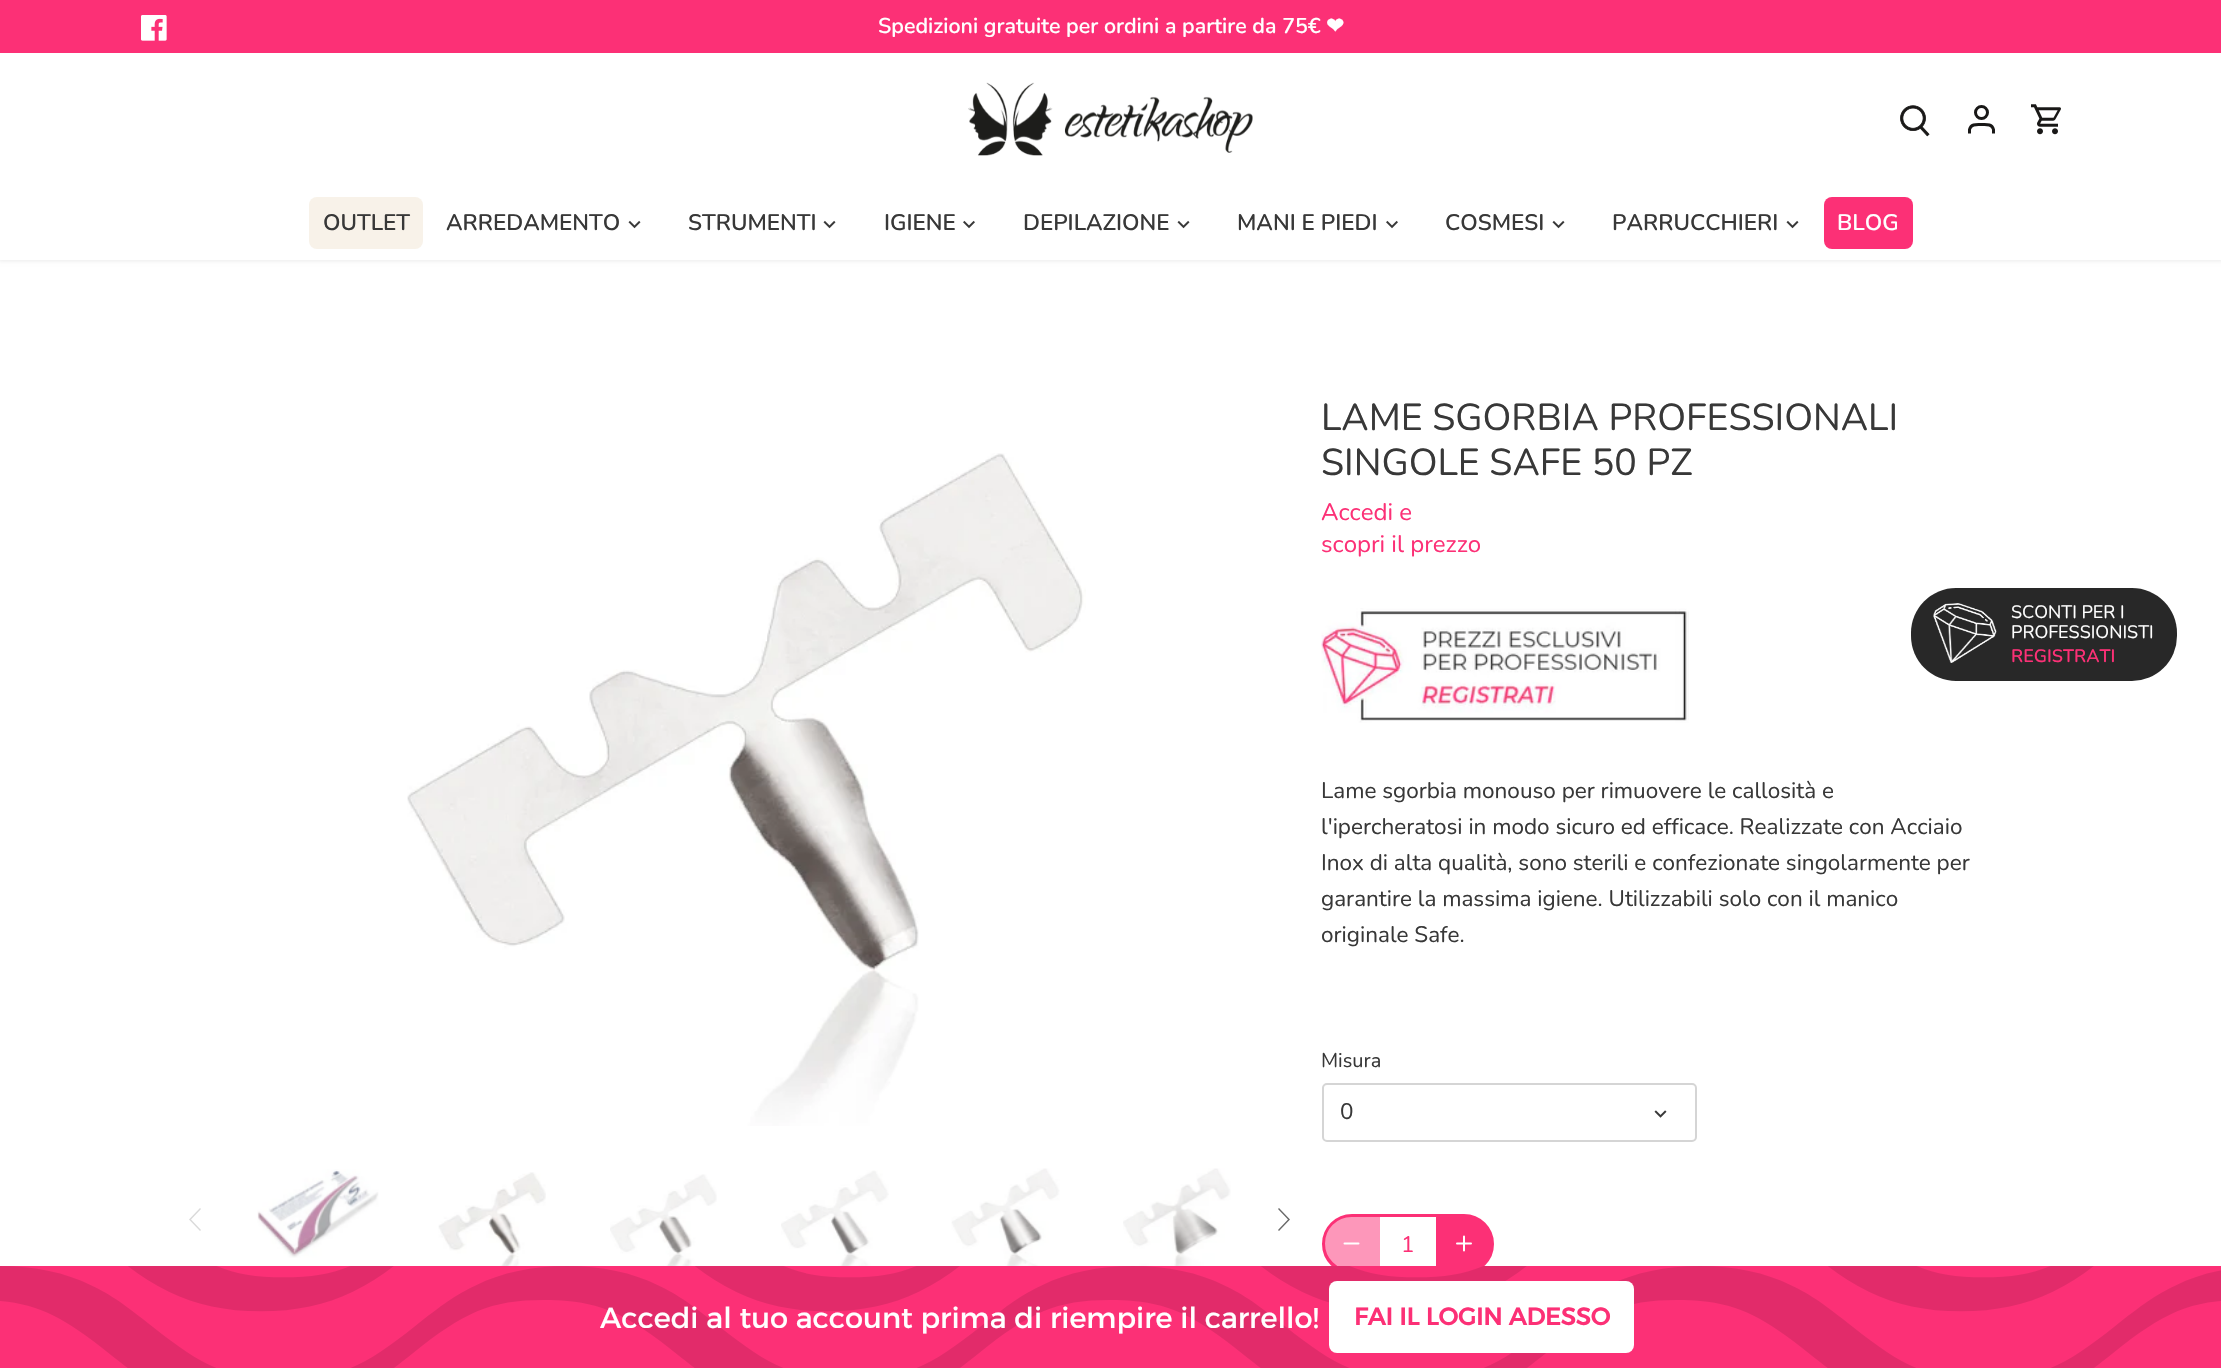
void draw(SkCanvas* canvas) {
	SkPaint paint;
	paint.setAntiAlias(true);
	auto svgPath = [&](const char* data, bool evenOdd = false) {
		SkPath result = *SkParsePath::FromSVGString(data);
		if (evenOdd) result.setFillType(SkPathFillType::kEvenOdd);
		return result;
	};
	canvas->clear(0xffffffff);
	paint.setColor(0x14000000);
	paint.setMaskFilter(SkMaskFilter::MakeBlur(kNormal_SkBlurStyle, 2));
	canvas->drawRect(SkRect::MakeXYWH(-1, 51, 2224, 210), paint);
	paint.setMaskFilter(nullptr);
	paint.setColor(0xfffc3076);
	canvas->drawRect(SkRect::MakeXYWH(0, 0, 2221, 53), paint);
	canvas->drawImageRect(SkImages::DeferredFromEncodedData(SkData::MakeFromFileName("img1.png")), SkRect::MakeXYWH(141, 15, 26, 26), SkSamplingOptions());
	SkFont f1(fontMgr->matchFamilyStyle("Nunito", SkFontStyle(600, SkFontStyle::kNormal_Width, SkFontStyle::kUpright_Slant)), 21.4);
	f1.setSubpixel(true);
	paint.setColor(0xffffffff);
	canvas->drawString("Spedizioni gratuite per ordini a partire da 75€", 878, 33, f1, paint);
	SkFont f2(fontMgr->matchFamilyStyle("DejaVu Sans", SkFontStyle::Bold()), 21.4);
	f2.setSubpixel(true);
	canvas->drawString("❤", 1326, 33, f2, paint);
	canvas->drawRect(SkRect::MakeXYWH(0, 53, 2221, 207), paint);
	canvas->drawImageRect(SkImages::DeferredFromEncodedData(SkData::MakeFromFileName("img2.png")), SkRect::MakeXYWH(968, 82, 285, 74), SkSamplingOptions());
	canvas->drawImageRect(SkImages::DeferredFromEncodedData(SkData::MakeFromFileName("img3.png")), SkRect::MakeXYWH(1900, 105, 30, 32), SkSamplingOptions());
	paint.setStroke(true);
	paint.setStrokeWidth(3);
	paint.setColor(0xff191817);
	canvas->drawCircle(1981.5, 112.5, 6, paint);
	canvas->drawPath(svgPath("M1993.5 133.5V129.5C1992 123.5 1986 124.5 1981.5 124.5C1977 124.5 1971 123.5 1969.5 129.5V133.5"), paint);
	canvas->drawImageRect(SkImages::DeferredFromEncodedData(SkData::MakeFromFileName("img4.png")), SkRect::MakeXYWH(2031, 104, 30, 31), SkSamplingOptions());
	paint.setStroke(false);
	paint.setColor(0xfff8f2e9);
	canvas->drawRoundRect(SkRect::MakeXYWH(309, 197, 114, 52), 8, 8, paint);
	SkFont f3(fontMgr->matchFamilyStyle("Nunito", SkFontStyle(600, SkFontStyle::kNormal_Width, SkFontStyle::kUpright_Slant)), 22.5);
	f3.setSubpixel(true);
	paint.setColor(0xff383838);
	canvas->drawString("OUTLET", 323, 230, f3, paint);
	canvas->drawString("ARREDAMENTO", 446, 230, f3, paint);
	canvas->drawImageRect(SkImages::DeferredFromEncodedData(SkData::MakeFromFileName("img5.png")), SkRect::MakeXYWH(628, 220, 13, 9), SkSamplingOptions());
	canvas->drawString("STRUMENTI", 688, 230, f3, paint);
	canvas->drawImageRect(SkImages::DeferredFromEncodedData(SkData::MakeFromFileName("img5.png")), SkRect::MakeXYWH(823, 220, 13, 9), SkSamplingOptions());
	canvas->drawString("IGIENE", 884, 230, f3, paint);
	canvas->drawImageRect(SkImages::DeferredFromEncodedData(SkData::MakeFromFileName("img6.png")), SkRect::MakeXYWH(963, 220, 12, 9), SkSamplingOptions());
	canvas->drawString("DEPILAZIONE", 1023, 230, f3, paint);
	canvas->drawImageRect(SkImages::DeferredFromEncodedData(SkData::MakeFromFileName("img5.png")), SkRect::MakeXYWH(1177, 220, 13, 9), SkSamplingOptions());
	canvas->drawString("MANI E PIEDI", 1237, 230, f3, paint);
	canvas->drawImageRect(SkImages::DeferredFromEncodedData(SkData::MakeFromFileName("img6.png")), SkRect::MakeXYWH(1386, 220, 12, 9), SkSamplingOptions());
	canvas->drawString("COSMESI", 1445, 230, f3, paint);
	canvas->drawImageRect(SkImages::DeferredFromEncodedData(SkData::MakeFromFileName("img5.png")), SkRect::MakeXYWH(1552, 220, 13, 9), SkSamplingOptions());
	canvas->drawString("PARRUCCHIERI", 1612, 230, f3, paint);
	canvas->drawImageRect(SkImages::DeferredFromEncodedData(SkData::MakeFromFileName("img5.png")), SkRect::MakeXYWH(1786, 220, 13, 9), SkSamplingOptions());
	paint.setColor(0xfffc3076);
	canvas->drawRoundRect(SkRect::MakeXYWH(1824, 197, 89, 52), 8, 8, paint);
	paint.setColor(0xffffffff);
	canvas->drawString("BLOG", 1837, 230, f3, paint);
	canvas->drawImageRect(SkImages::DeferredFromEncodedData(SkData::MakeFromFileName("img7.png")), SkRect::MakeXYWH(407, 453, 679, 673), SkSamplingOptions());
	paint.setColor(0xffdadada);
	canvas->drawPath(svgPath("M201 1209L200 1208L189 1219.5L200 1231L201 1230L191 1219.5Z"), paint);
	canvas->drawImageRect(SkImages::DeferredFromEncodedData(SkData::MakeFromFileName("img8.png")), SkRect::MakeXYWH(257, 1169, 122, 89), SkSamplingOptions());
	canvas->drawImageRect(SkImages::DeferredFromEncodedData(SkData::MakeFromFileName("img9.png")), SkRect::MakeXYWH(438, 1172, 108, 94), SkSamplingOptions());
	canvas->drawImageRect(SkImages::DeferredFromEncodedData(SkData::MakeFromFileName("img10.png")), SkRect::MakeXYWH(610, 1174, 107, 92), SkSamplingOptions());
	canvas->drawImageRect(SkImages::DeferredFromEncodedData(SkData::MakeFromFileName("img11.png")), SkRect::MakeXYWH(781, 1170, 108, 96), SkSamplingOptions());
	canvas->drawImageRect(SkImages::DeferredFromEncodedData(SkData::MakeFromFileName("img12.png")), SkRect::MakeXYWH(951, 1168, 109, 98), SkSamplingOptions());
	canvas->drawImageRect(SkImages::DeferredFromEncodedData(SkData::MakeFromFileName("img13.png")), SkRect::MakeXYWH(1123, 1168, 108, 98), SkSamplingOptions());
	paint.setColor(0xff6a6a6a);
	canvas->drawPath(svgPath("M1279 1208L1278 1209L1288 1219.5L1278 1230L1279 1231L1290 1219.5Z"), paint);
	SkFont f4(fontMgr->matchFamilyStyle("Nunito", SkFontStyle::Normal()), 37.5);
	f4.setSubpixel(true);
	paint.setColor(0xff383838);
	canvas->drawString("LAME SGORBIA PROFESSIONALI", 1321, 430, f4, paint);
	canvas->drawString("SINGOLE SAFE 50 PZ", 1321, 475, f4, paint);
	SkFont f5(fontMgr->matchFamilyStyle("Nunito", SkFontStyle::Normal()), 24);
	f5.setSubpixel(true);
	paint.setColor(0xfffc3076);
	canvas->drawString("Accedi e", 1321, 520, f5, paint);
	canvas->drawString("scopri il prezzo", 1321, 552, f5, paint);
	canvas->drawImageRect(SkImages::DeferredFromEncodedData(SkData::MakeFromFileName("img14.png")), SkRect::MakeXYWH(1321, 608, 368, 115), SkSamplingOptions());
	SkFont f6(fontMgr->matchFamilyStyle("Nunito", SkFontStyle::Normal()), 22.5);
	f6.setSubpixel(true);
	paint.setColor(0xff383838);
	canvas->drawString("Lame sgorbia monouso per rimuovere le callosità e", 1321, 798, f6, paint);
	canvas->drawString("l'ipercheratosi in modo sicuro ed efficace. Realizzate con Acciaio", 1321, 834, f6, paint);
	canvas->drawString("Inox di alta qualità, sono sterili e confezionate singolarmente per", 1321, 870, f6, paint);
	canvas->drawString("garantire la massima igiene. Utilizzabili solo con il manico", 1321, 906, f6, paint);
	canvas->drawString("originale Safe.", 1321, 942, f6, paint);
	SkFont f7(fontMgr->matchFamilyStyle("Nunito", SkFontStyle::Normal()), 20);
	f7.setSubpixel(true);
	canvas->drawString("Misura", 1321, 1067, f7, paint);
	paint.setStroke(true);
	paint.setStrokeWidth(2);
	paint.setColor(0xffd5d5d5);
	canvas->drawRoundRect(SkRect::MakeXYWH(1323, 1084, 373, 57), 4, 4, paint);
	paint.setStroke(false);
	paint.setColor(0xff383838);
	canvas->drawString("0", 1340, 1119, f6, paint);
	canvas->drawImageRect(SkImages::DeferredFromEncodedData(SkData::MakeFromFileName("img15.png")), SkRect::MakeXYWH(1654, 1110, 13, 8), SkSamplingOptions());
	paint.setStroke(true);
	paint.setColor(0xfffc3076);
	canvas->drawRoundRect(SkRect::MakeXYWH(1324, 1216, 168, 55), 27.5, 27.5, paint);
	canvas->drawRoundRect(SkRect::MakeXYWH(1323, 1215, 170, 58), 29, 29, paint);
	paint.setStroke(false);
	paint.setColor(0x80fc3076);
	canvas->drawPath(svgPath("M1351.5 1215H1380V1272H1351.5C1336 1272 1323 1259 1323 1243.5C1323 1228 1336 1215 1351.5 1215Z"), paint);
	paint.setStroke(true);
	paint.setStrokeCap(SkPaint::kRound_Cap);
	paint.setStrokeJoin(SkPaint::kRound_Join);
	paint.setColor(0xffffffff);
	canvas->drawPath(svgPath("M1344.5 1243.5H1358.5"), paint);
	paint.setStroke(false);
	paint.setColor(0xfffc3076);
	canvas->drawString("1", 1401, 1252, f6, paint);
	canvas->drawPath(svgPath("M1436 1215H1464.5C1480 1215 1493 1228 1493 1243.5C1493 1259 1480 1272 1464.5 1272H1436Z"), paint);
	paint.setStroke(true);
	paint.setColor(0xffffffff);
	canvas->drawPath(svgPath("M1464 1236.5V1250.5M1457 1243.5H1471"), paint);
	paint.setStroke(false);
	paint.setColor(0xff282828);
	canvas->drawRoundRect(SkRect::MakeXYWH(1911, 588, 266, 93), 45, 45, paint);
	canvas->drawImageRect(SkImages::DeferredFromEncodedData(SkData::MakeFromFileName("img16.png")), SkRect::MakeXYWH(1933, 603, 64, 60), SkSamplingOptions());
	SkFont f8(fontMgr->matchFamilyStyle("Nunito", SkFontStyle::Normal()), 18);
	f8.setSubpixel(true);
	paint.setColor(0xffffffff);
	canvas->drawString("SCONTI PER I", 2011, 618, f8, paint);
	canvas->drawString("PROFESSIONISTI", 2011, 638, f8, paint);
	SkFont f9(fontMgr->matchFamilyStyle("Nunito", SkFontStyle(600, SkFontStyle::kNormal_Width, SkFontStyle::kUpright_Slant)), 18);
	f9.setSubpixel(true);
	paint.setColor(0xfffc3076);
	canvas->drawString("REGISTRATI", 2011, 662, f9, paint);
	canvas->drawRect(SkRect::MakeXYWH(0, 1266, 2221, 102), paint);
	canvas->drawImageRect(SkImages::DeferredFromEncodedData(SkData::MakeFromFileName("img17.png")), SkRect::MakeXYWH(0, 1266, 2221, 102), SkSamplingOptions());
	SkFont f10(fontMgr->matchFamilyStyle("Alexandria", SkFontStyle::Normal()), 28.8);
	f10.setSubpixel(true);
	paint.setColor(0xffffffff);
	canvas->drawString("Accedi al tuo account prima di riempire il carrello!", 600, 1328, f10, paint);
	canvas->drawRoundRect(SkRect::MakeXYWH(1329, 1281, 305, 72), 8, 8, paint);
	SkFont f11(fontMgr->matchFamilyStyle("Alexandria", SkFontStyle::Bold()), 24);
	f11.setSubpixel(true);
	paint.setColor(0xfffc3076);
	canvas->drawString("FAI IL LOGIN ADESSO", 1354, 1325, f11, paint);
}
